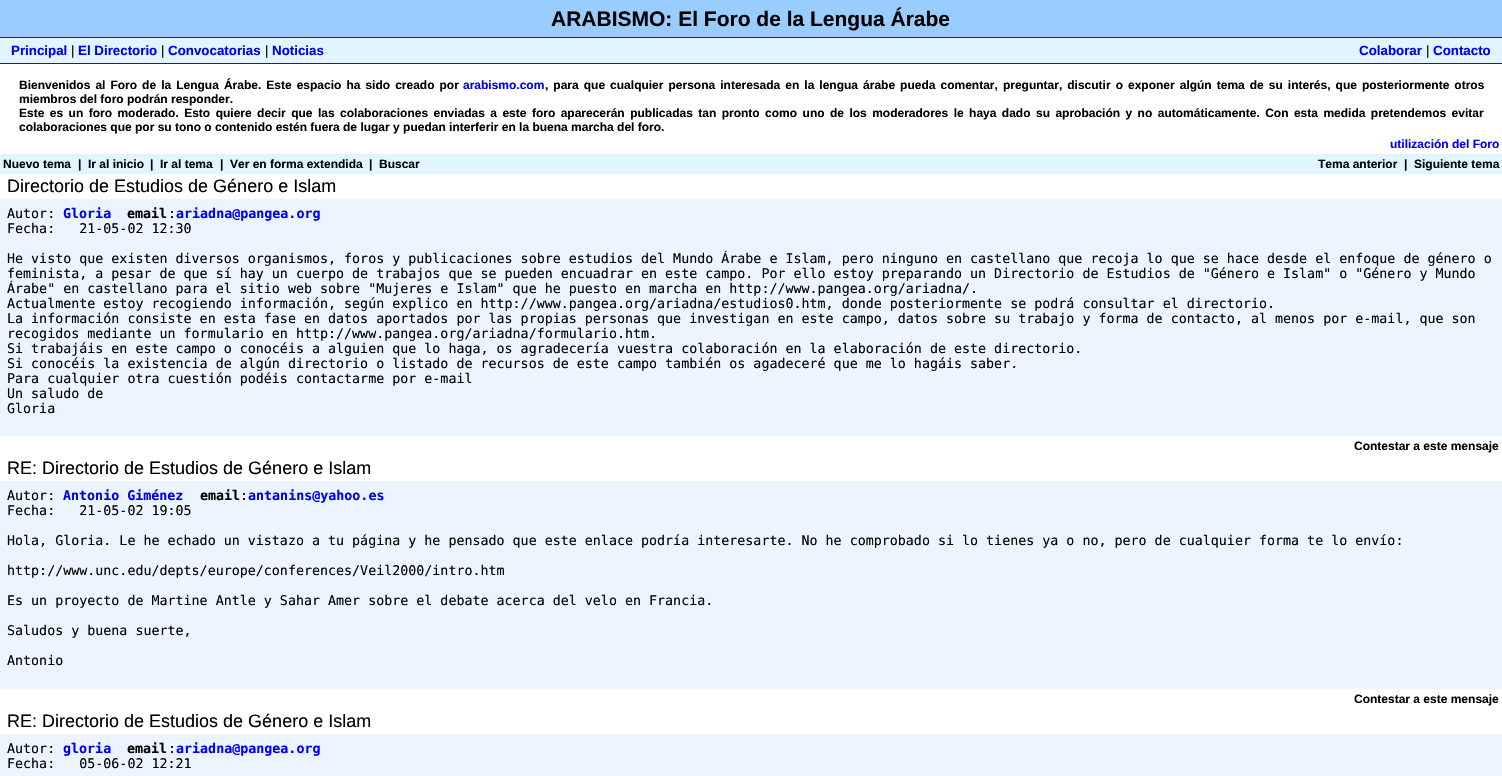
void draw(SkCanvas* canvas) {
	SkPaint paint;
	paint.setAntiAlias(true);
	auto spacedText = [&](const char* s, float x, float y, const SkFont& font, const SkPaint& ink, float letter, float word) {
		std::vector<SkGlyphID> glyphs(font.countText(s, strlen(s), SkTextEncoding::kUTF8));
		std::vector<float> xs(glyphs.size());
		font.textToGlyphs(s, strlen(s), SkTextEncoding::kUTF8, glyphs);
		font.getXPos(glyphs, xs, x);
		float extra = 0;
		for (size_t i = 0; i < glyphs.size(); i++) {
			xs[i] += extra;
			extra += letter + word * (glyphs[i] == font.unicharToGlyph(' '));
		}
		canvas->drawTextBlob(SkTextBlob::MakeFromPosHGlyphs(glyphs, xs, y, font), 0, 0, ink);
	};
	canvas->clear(0xffffffff);
	paint.setColor(0xff99ccff);
	canvas->drawRect(SkRect::MakeXYWH(0, 0, 1502, 37), paint);
	SkFont f1(fontMgr->matchFamilyStyle("Liberation Sans", SkFontStyle::Bold()), 21);
	f1.setSubpixel(true);
	paint.setColor(0xff000000);
	canvas->drawString("ARABISMO: El Foro de la Lengua Árabe", 551, 26, f1, paint);
	paint.setColor(0xff70003f);
	canvas->drawRect(SkRect::MakeXYWH(0, 37, 1502, 1), paint);
	paint.setColor(0xffe0f5ff);
	canvas->drawRect(SkRect::MakeXYWH(0, 38, 1502, 25), paint);
	SkFont f2(fontMgr->matchFamilyStyle("Liberation Sans", SkFontStyle::Bold()), 13.33);
	f2.setSubpixel(true);
	paint.setColor(0xff0000ee);
	canvas->drawString("Principal", 11, 55, f2, paint);
	SkFont f3(fontMgr->matchFamilyStyle("Liberation Sans", SkFontStyle::Normal()), 13.33);
	f3.setSubpixel(true);
	paint.setColor(0xff000000);
	canvas->drawString("|", 71, 55, f3, paint);
	paint.setColor(0xff0000ee);
	canvas->drawString("El Directorio", 78, 55, f2, paint);
	paint.setColor(0xff000000);
	canvas->drawString("|", 161, 55, f3, paint);
	paint.setColor(0xff0000ee);
	canvas->drawString("Convocatorias", 168, 55, f2, paint);
	paint.setColor(0xff000000);
	canvas->drawString("|", 265, 55, f3, paint);
	paint.setColor(0xff0000ee);
	canvas->drawString("Noticias", 272, 55, f2, paint);
	canvas->drawString("Colaborar", 1359, 55, f2, paint);
	paint.setColor(0xff000000);
	canvas->drawString("|", 1426, 55, f3, paint);
	paint.setColor(0xff0000ee);
	canvas->drawString("Contacto", 1433, 55, f2, paint);
	paint.setColor(0xff70003f);
	canvas->drawRect(SkRect::MakeXYWH(0, 63, 1502, 1), paint);
	SkFont f4(fontMgr->matchFamilyStyle("Liberation Sans", SkFontStyle::Bold()), 12);
	f4.setSubpixel(true);
	paint.setColor(0xff000000);
	spacedText("Bienvenidos al Foro de la Lengua Árabe. Este espacio ha sido creado por", 19, 89, f4, paint, 0, 1.7);
	paint.setColor(0xff0000ff);
	canvas->drawString("arabismo.com", 463, 89, f4, paint);
	paint.setColor(0xff000000);
	spacedText(", para que cualquier persona interesada en la lengua árabe pueda comentar, preguntar, discutir o exponer algún tema de su interés, que posteriormente otros", 545, 89, f4, paint, 0, 1.7);
	canvas->drawString("miembros del foro podrán responder.", 19, 103, f4, paint);
	spacedText("Este es un foro moderado. Esto quiere decir que las colaboraciones enviadas a este foro aparecerán publicadas tan pronto como uno de los moderadores le haya dado su aprobación y no automáticamente. Con esta medida pretendemos evitar", 19, 117, f4, paint, 0, 2.1);
	canvas->drawString("colaboraciones que por su tono o contenido estén fuera de lugar y puedan interferir en la buena marcha del foro.", 19, 131, f4, paint);
	paint.setColor(0xff0000ff);
	canvas->drawString("utilización del Foro", 1390, 148, f4, paint);
	paint.setColor(0xffe0f5ff);
	canvas->drawRect(SkRect::MakeXYWH(0, 154, 1502, 20), paint);
	paint.setColor(0xff000000);
	canvas->drawString("Nuevo tema", 3, 168, f4, paint);
	canvas->drawString("|", 78, 168, f4, paint);
	canvas->drawString("Ir al inicio", 88, 168, f4, paint);
	canvas->drawString("|", 150, 168, f4, paint);
	canvas->drawString("Ir al tema", 160, 168, f4, paint);
	canvas->drawString("|", 220, 168, f4, paint);
	canvas->drawString("Ver en forma extendida", 230, 168, f4, paint);
	canvas->drawString("|", 369, 168, f4, paint);
	canvas->drawString("Buscar", 379, 168, f4, paint);
	canvas->drawString("Tema anterior", 1318, 168, f4, paint);
	canvas->drawString("|", 1404, 168, f4, paint);
	canvas->drawString("Siguiente tema", 1414, 168, f4, paint);
	SkFont f5(fontMgr->matchFamilyStyle("Liberation Sans", SkFontStyle::Normal()), 18);
	f5.setSubpixel(true);
	canvas->drawString("Directorio de Estudios de Género e Islam", 7, 192, f5, paint);
	paint.setColor(0xffecf5ff);
	canvas->drawRect(SkRect::MakeXYWH(0, 199, 1502, 237), paint);
	SkFont f6(fontMgr->matchFamilyStyle("DejaVu Sans Mono", SkFontStyle::Normal()), 13.33);
	f6.setSubpixel(true);
	paint.setColor(0xff000000);
	canvas->drawString("Autor:", 7, 218, f6, paint);
	SkFont f7(fontMgr->matchFamilyStyle("DejaVu Sans Mono", SkFontStyle::Bold()), 13.33);
	f7.setSubpixel(true);
	paint.setColor(0xff0000ee);
	canvas->drawString("Gloria", 63, 218, f7, paint);
	paint.setColor(0xff000000);
	canvas->drawString("email", 127, 218, f7, paint);
	canvas->drawString(":", 168, 218, f6, paint);
	paint.setColor(0xff0000ff);
	canvas->drawString("ariadna@pangea.org", 176, 218, f7, paint);
	paint.setColor(0xff000000);
	canvas->drawString("Fecha:   21-05-02 12:30", 7, 233, f6, paint);
	canvas->drawString("He visto que existen diversos organismos, foros y publicaciones sobre estudios del Mundo Árabe e Islam, pero ninguno en castellano que recoja lo que se hace desde el enfoque de género o", 7, 263, f6, paint);
	canvas->drawString("feminista, a pesar de que sí hay un cuerpo de trabajos que se pueden encuadrar en este campo. Por ello estoy preparando un Directorio de Estudios de \"Género e Islam\" o \"Género y Mundo", 7, 278, f6, paint);
	canvas->drawString("Árabe\" en castellano para el sitio web sobre \"Mujeres e Islam\" que he puesto en marcha en http://www.pangea.org/ariadna/.", 7, 293, f6, paint);
	canvas->drawString("Actualmente estoy recogiendo información, según explico en http://www.pangea.org/ariadna/estudios0.htm, donde posteriormente se podrá consultar el directorio.", 7, 308, f6, paint);
	canvas->drawString("La información consiste en esta fase en datos aportados por las propias personas que investigan en este campo, datos sobre su trabajo y forma de contacto, al menos por e-mail, que son", 7, 323, f6, paint);
	canvas->drawString("recogidos mediante un formulario en http://www.pangea.org/ariadna/formulario.htm.", 7, 338, f6, paint);
	canvas->drawString("Si trabajáis en este campo o conocéis a alguien que lo haga, os agradecería vuestra colaboración en la elaboración de este directorio.", 7, 353, f6, paint);
	canvas->drawString("Si conocéis la existencia de algún directorio o listado de recursos de este campo también os agadeceré que me lo hagáis saber.", 7, 368, f6, paint);
	canvas->drawString("Para cualquier otra cuestión podéis contactarme por e-mail", 7, 383, f6, paint);
	canvas->drawString("Un saludo de", 7, 398, f6, paint);
	canvas->drawString("Gloria", 7, 413, f6, paint);
	canvas->drawString("Contestar a este mensaje", 1354, 450, f4, paint);
	canvas->drawString("RE: Directorio de Estudios de Género e Islam", 7, 474, f5, paint);
	paint.setColor(0xffecf5ff);
	canvas->drawRect(SkRect::MakeXYWH(0, 481, 1502, 208), paint);
	paint.setColor(0xff000000);
	canvas->drawString("Autor:", 7, 500, f6, paint);
	paint.setColor(0xff0000ee);
	canvas->drawString("Antonio Giménez", 63, 500, f7, paint);
	paint.setColor(0xff000000);
	canvas->drawString("email", 200, 500, f7, paint);
	canvas->drawString(":", 240, 500, f6, paint);
	paint.setColor(0xff0000ff);
	canvas->drawString("antanins@yahoo.es", 248, 500, f7, paint);
	paint.setColor(0xff000000);
	canvas->drawString("Fecha:   21-05-02 19:05", 7, 515, f6, paint);
	canvas->drawString("Hola, Gloria. Le he echado un vistazo a tu página y he pensado que este enlace podría interesarte. No he comprobado si lo tienes ya o no, pero de cualquier forma te lo envío:", 7, 545, f6, paint);
	canvas->drawString("http://www.unc.edu/depts/europe/conferences/Veil2000/intro.htm", 7, 575, f6, paint);
	canvas->drawString("Es un proyecto de Martine Antle y Sahar Amer sobre el debate acerca del velo en Francia.", 7, 605, f6, paint);
	canvas->drawString("Saludos y buena suerte,", 7, 635, f6, paint);
	canvas->drawString("Antonio", 7, 665, f6, paint);
	canvas->drawString("Contestar a este mensaje", 1354, 703, f4, paint);
	canvas->drawString("RE: Directorio de Estudios de Género e Islam", 7, 727, f5, paint);
	paint.setColor(0xffecf5ff);
	canvas->drawRect(SkRect::MakeXYWH(0, 734, 1502, 42), paint);
	paint.setColor(0xff000000);
	canvas->drawString("Autor:", 7, 753, f6, paint);
	paint.setColor(0xff0000ee);
	canvas->drawString("gloria", 63, 753, f7, paint);
	paint.setColor(0xff000000);
	canvas->drawString("email", 127, 753, f7, paint);
	canvas->drawString(":", 168, 753, f6, paint);
	paint.setColor(0xff0000ff);
	canvas->drawString("ariadna@pangea.org", 176, 753, f7, paint);
	paint.setColor(0xff000000);
	canvas->drawString("Fecha:   05-06-02 12:21", 7, 768, f6, paint);
}
